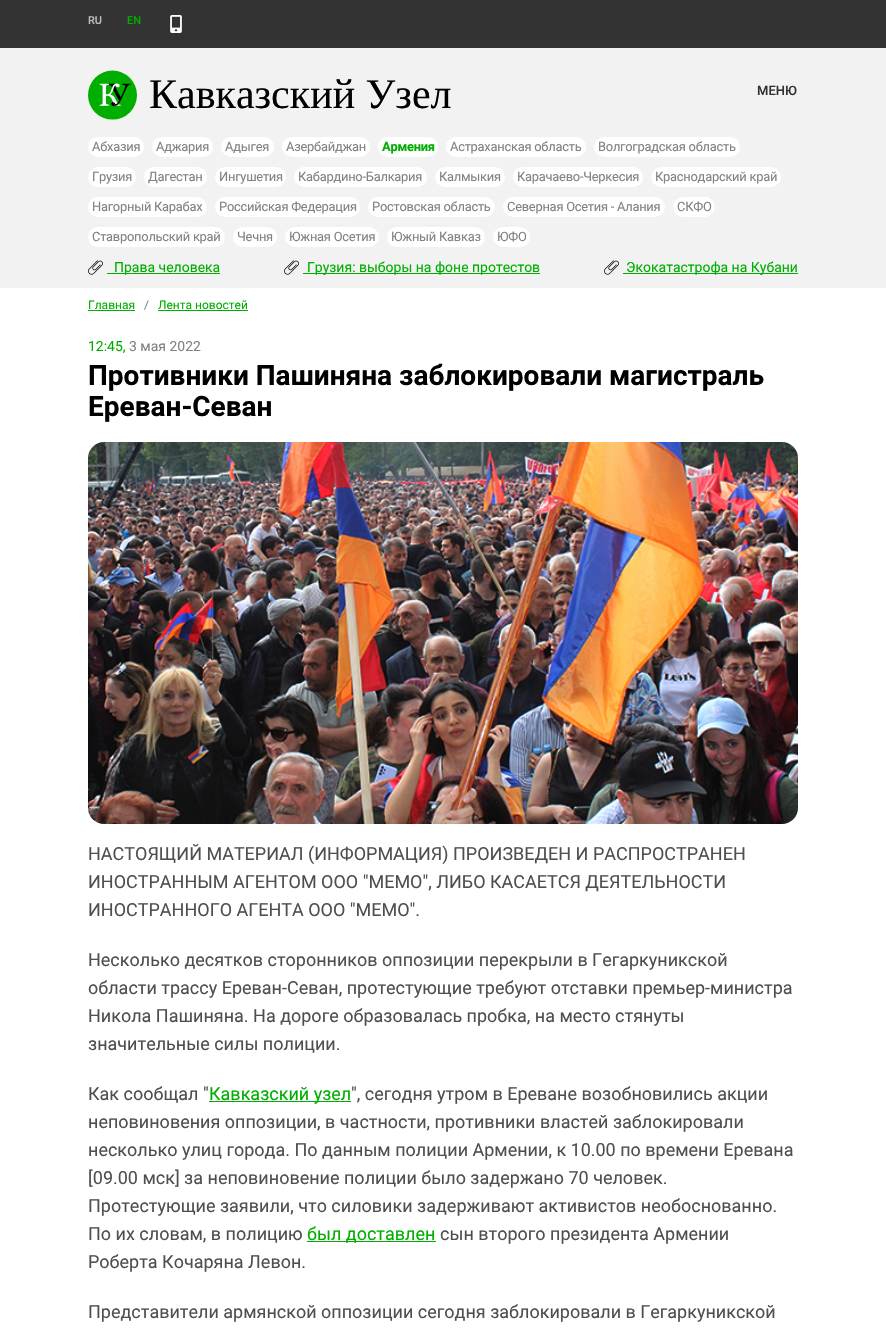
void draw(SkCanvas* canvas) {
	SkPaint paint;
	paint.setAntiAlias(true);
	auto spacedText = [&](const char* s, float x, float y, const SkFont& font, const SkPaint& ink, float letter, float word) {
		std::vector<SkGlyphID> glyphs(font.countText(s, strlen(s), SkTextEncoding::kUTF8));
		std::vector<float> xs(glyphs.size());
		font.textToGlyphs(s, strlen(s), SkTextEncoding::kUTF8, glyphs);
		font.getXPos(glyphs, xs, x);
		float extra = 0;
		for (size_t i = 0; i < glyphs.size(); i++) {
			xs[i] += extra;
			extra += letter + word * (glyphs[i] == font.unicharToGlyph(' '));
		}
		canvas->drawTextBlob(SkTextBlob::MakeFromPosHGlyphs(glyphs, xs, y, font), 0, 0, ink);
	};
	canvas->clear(0xffffffff);
	paint.setColor(0xff333333);
	canvas->drawRect(SkRect::MakeXYWH(0, 0, 886, 48), paint);
	SkFont f1(fontMgr->matchFamilyStyle("Roboto", SkFontStyle(500, SkFontStyle::kNormal_Width, SkFontStyle::kUpright_Slant)), 11);
	f1.setSubpixel(true);
	paint.setColor(0xffbdbdbd);
	canvas->drawString("RU", 88, 24, f1, paint);
	paint.setColor(0xff00ae00);
	canvas->drawString("EN", 127, 24, f1, paint);
	canvas->drawImageRect(SkImages::DeferredFromEncodedData(SkData::MakeFromFileName("img1.png")), SkRect::MakeXYWH(170, 15, 12, 18), SkSamplingOptions());
	paint.setColor(0xfff2f2f2);
	canvas->drawRect(SkRect::MakeXYWH(0, 48, 886, 240), paint);
	canvas->drawImageRect(SkImages::DeferredFromEncodedData(SkData::MakeFromFileName("img2.png")), SkRect::MakeXYWH(88, 70, 49, 50), SkSamplingOptions());
	SkFont f2(fontMgr->matchFamilyStyle("Liberation Serif", SkFontStyle::Normal()), 42);
	f2.setSubpixel(true);
	paint.setColor(0xff000000);
	canvas->drawString("Кавказский Узел", 149, 108, f2, paint);
	SkFont f3(fontMgr->matchFamilyStyle("Roboto", SkFontStyle(500, SkFontStyle::kNormal_Width, SkFontStyle::kUpright_Slant)), 13);
	f3.setSubpixel(true);
	paint.setColor(0xff333333);
	canvas->drawString("МЕНЮ", 757, 95, f3, paint);
	paint.setColor(0xffffffff);
	canvas->drawRoundRect(SkRect::MakeXYWH(88, 137, 56, 20), 10, 10, paint);
	SkFont f4(fontMgr->matchFamilyStyle("Roboto", SkFontStyle::Normal()), 12.9);
	f4.setSubpixel(true);
	paint.setColor(0xff828282);
	spacedText("Абхазия", 92, 151, f4, paint, -0.25, 0);
	paint.setColor(0xffffffff);
	canvas->drawRoundRect(SkRect::MakeXYWH(152, 137, 61, 20), 10, 10, paint);
	paint.setColor(0xff828282);
	spacedText("Аджария", 156, 151, f4, paint, -0.25, 0);
	paint.setColor(0xffffffff);
	canvas->drawRoundRect(SkRect::MakeXYWH(221, 137, 53, 20), 10, 10, paint);
	paint.setColor(0xff828282);
	spacedText("Адыгея", 225, 151, f4, paint, -0.25, 0);
	paint.setColor(0xffffffff);
	canvas->drawRoundRect(SkRect::MakeXYWH(282, 137, 88, 20), 10, 10, paint);
	paint.setColor(0xff828282);
	spacedText("Азербайджан", 286, 151, f4, paint, -0.25, 0);
	paint.setColor(0xffffffff);
	canvas->drawRoundRect(SkRect::MakeXYWH(378, 137, 60, 20), 10, 10, paint);
	SkFont f5(fontMgr->matchFamilyStyle("Roboto", SkFontStyle::Bold()), 12.9);
	f5.setSubpixel(true);
	paint.setColor(0xff00ae00);
	spacedText("Армения", 382, 151, f5, paint, -0.25, 0);
	paint.setColor(0xffffffff);
	canvas->drawRoundRect(SkRect::MakeXYWH(446, 137, 140, 20), 10, 10, paint);
	paint.setColor(0xff828282);
	spacedText("Астраханская область", 450, 151, f4, paint, -0.25, 0);
	paint.setColor(0xffffffff);
	canvas->drawRoundRect(SkRect::MakeXYWH(594, 137, 146, 20), 10, 10, paint);
	paint.setColor(0xff828282);
	spacedText("Волгоградская область", 598, 151, f4, paint, -0.25, 0);
	paint.setColor(0xffffffff);
	canvas->drawRoundRect(SkRect::MakeXYWH(88, 167, 48, 20), 10, 10, paint);
	paint.setColor(0xff828282);
	spacedText("Грузия", 92, 181, f4, paint, -0.25, 0);
	paint.setColor(0xffffffff);
	canvas->drawRoundRect(SkRect::MakeXYWH(144, 167, 63, 20), 10, 10, paint);
	paint.setColor(0xff828282);
	spacedText("Дагестан", 148, 181, f4, paint, -0.25, 0);
	paint.setColor(0xffffffff);
	canvas->drawRoundRect(SkRect::MakeXYWH(215, 167, 71, 20), 10, 10, paint);
	paint.setColor(0xff828282);
	spacedText("Ингушетия", 219, 181, f4, paint, -0.25, 0);
	paint.setColor(0xffffffff);
	canvas->drawRoundRect(SkRect::MakeXYWH(294, 167, 133, 20), 10, 10, paint);
	paint.setColor(0xff828282);
	spacedText("Кабардино-Балкария", 298, 181, f4, paint, -0.25, 0);
	paint.setColor(0xffffffff);
	canvas->drawRoundRect(SkRect::MakeXYWH(435, 167, 70, 20), 10, 10, paint);
	paint.setColor(0xff828282);
	spacedText("Калмыкия", 439, 181, f4, paint, -0.25, 0);
	paint.setColor(0xffffffff);
	canvas->drawRoundRect(SkRect::MakeXYWH(513, 167, 130, 20), 10, 10, paint);
	paint.setColor(0xff828282);
	spacedText("Карачаево-Черкесия", 517, 181, f4, paint, -0.25, 0);
	paint.setColor(0xffffffff);
	canvas->drawRoundRect(SkRect::MakeXYWH(651, 167, 130, 20), 10, 10, paint);
	paint.setColor(0xff828282);
	spacedText("Краснодарский край", 655, 181, f4, paint, -0.25, 0);
	paint.setColor(0xffffffff);
	canvas->drawRoundRect(SkRect::MakeXYWH(88, 197, 119, 20), 10, 10, paint);
	paint.setColor(0xff828282);
	spacedText("Нагорный Карабах", 92, 211, f4, paint, -0.25, 0);
	paint.setColor(0xffffffff);
	canvas->drawRoundRect(SkRect::MakeXYWH(215, 197, 145, 20), 10, 10, paint);
	paint.setColor(0xff828282);
	spacedText("Российская Федерация", 219, 211, f4, paint, -0.25, 0);
	paint.setColor(0xffffffff);
	canvas->drawRoundRect(SkRect::MakeXYWH(368, 197, 127, 20), 10, 10, paint);
	paint.setColor(0xff828282);
	spacedText("Ростовская область", 372, 211, f4, paint, -0.25, 0);
	paint.setColor(0xffffffff);
	canvas->drawRoundRect(SkRect::MakeXYWH(503, 197, 162, 20), 10, 10, paint);
	paint.setColor(0xff828282);
	spacedText("Северная Осетия - Алания", 507, 211, f4, paint, -0.25, 0);
	paint.setColor(0xffffffff);
	canvas->drawRoundRect(SkRect::MakeXYWH(673, 197, 42, 20), 10, 10, paint);
	paint.setColor(0xff828282);
	spacedText("СКФО", 677, 211, f4, paint, -0.25, 0);
	paint.setColor(0xffffffff);
	canvas->drawRoundRect(SkRect::MakeXYWH(88, 227, 137, 20), 10, 10, paint);
	paint.setColor(0xff828282);
	spacedText("Ставропольский край", 92, 241, f4, paint, -0.25, 0);
	paint.setColor(0xffffffff);
	canvas->drawRoundRect(SkRect::MakeXYWH(233, 227, 44, 20), 10, 10, paint);
	paint.setColor(0xff828282);
	spacedText("Чечня", 237, 241, f4, paint, -0.25, 0);
	paint.setColor(0xffffffff);
	canvas->drawRoundRect(SkRect::MakeXYWH(285, 227, 94, 20), 10, 10, paint);
	paint.setColor(0xff828282);
	spacedText("Южная Осетия", 289, 241, f4, paint, -0.25, 0);
	paint.setColor(0xffffffff);
	canvas->drawRoundRect(SkRect::MakeXYWH(387, 227, 98, 20), 10, 10, paint);
	paint.setColor(0xff828282);
	spacedText("Южный Кавказ", 391, 241, f4, paint, -0.25, 0);
	paint.setColor(0xffffffff);
	canvas->drawRoundRect(SkRect::MakeXYWH(493, 227, 37, 20), 10, 10, paint);
	paint.setColor(0xff828282);
	spacedText("ЮФО", 497, 241, f4, paint, -0.25, 0);
	canvas->drawImageRect(SkImages::DeferredFromEncodedData(SkData::MakeFromFileName("img3.png")), SkRect::MakeXYWH(88, 260, 15, 15), SkSamplingOptions());
	paint.setColor(0xff00ae00);
	canvas->drawRect(SkRect::MakeXYWH(107, 273, 113, 1), paint);
	SkFont f6(fontMgr->matchFamilyStyle("Roboto", SkFontStyle::Normal()), 14);
	f6.setSubpixel(true);
	canvas->drawString("Права человека", 114, 272, f6, paint);
	canvas->drawImageRect(SkImages::DeferredFromEncodedData(SkData::MakeFromFileName("img3.png")), SkRect::MakeXYWH(284, 260, 15, 15), SkSamplingOptions());
	canvas->drawRect(SkRect::MakeXYWH(303, 273, 237, 1), paint);
	canvas->drawString("Грузия: выборы на фоне протестов", 307, 272, f6, paint);
	canvas->drawImageRect(SkImages::DeferredFromEncodedData(SkData::MakeFromFileName("img3.png")), SkRect::MakeXYWH(604, 260, 15, 15), SkSamplingOptions());
	canvas->drawRect(SkRect::MakeXYWH(623, 273, 175, 1), paint);
	canvas->drawString("Экокатастрофа на Кубани", 626, 272, f6, paint);
	SkFont f7(fontMgr->matchFamilyStyle("Roboto", SkFontStyle::Normal()), 12);
	f7.setSubpixel(true);
	canvas->drawString("Главная", 88, 309, f7, paint);
	canvas->drawRect(SkRect::MakeXYWH(88, 310, 47, 1), paint);
	paint.setColor(0xff828282);
	canvas->drawString("/", 144, 309, f7, paint);
	paint.setColor(0xff00ae00);
	canvas->drawString("Лента новостей", 158, 309, f7, paint);
	canvas->drawRect(SkRect::MakeXYWH(158, 310, 90, 1), paint);
	canvas->drawString("12:45,", 88, 351, f6, paint);
	paint.setColor(0xff828282);
	canvas->drawString("3 мая 2022", 129, 351, f6, paint);
	SkFont f8(fontMgr->matchFamilyStyle("Roboto", SkFontStyle::Bold()), 28);
	f8.setSubpixel(true);
	paint.setColor(0xff000000);
	canvas->drawString("Противники Пашиняна заблокировали магистраль", 88, 385, f8, paint);
	canvas->drawString("Ереван-Севан", 88, 416, f8, paint);
	canvas->drawImageRect(SkImages::DeferredFromEncodedData(SkData::MakeFromFileName("img4.png")), SkRect::MakeXYWH(88, 442, 710, 382), SkSamplingOptions());
	SkFont f9(fontMgr->matchFamilyStyle("Roboto", SkFontStyle::Normal()), 18);
	f9.setSubpixel(true);
	paint.setColor(0xff4f4f4f);
	canvas->drawString("НАСТОЯЩИЙ МАТЕРИАЛ (ИНФОРМАЦИЯ) ПРОИЗВЕДЕН И РАСПРОСТРАНЕН", 88, 860, f9, paint);
	canvas->drawString("ИНОСТРАННЫМ АГЕНТОМ ООО \"МЕМО\", ЛИБО КАСАЕТСЯ ДЕЯТЕЛЬНОСТИ", 88, 888, f9, paint);
	canvas->drawString("ИНОСТРАННОГО АГЕНТА ООО \"МЕМО\".", 88, 916, f9, paint);
	canvas->drawString("Несколько десятков сторонников оппозиции перекрыли в Гегаркуникской", 88, 966, f9, paint);
	canvas->drawString("области трассу Ереван-Севан, протестующие требуют отставки премьер-министра", 88, 994, f9, paint);
	canvas->drawString("Никола Пашиняна. На дороге образовалась пробка, на место стянуты", 88, 1022, f9, paint);
	canvas->drawString("значительные силы полиции.", 88, 1050, f9, paint);
	canvas->drawString("Как сообщал \"", 88, 1100, f9, paint);
	paint.setColor(0xff00ae00);
	canvas->drawRect(SkRect::MakeXYWH(209, 1101, 142, 1), paint);
	canvas->drawString("Кавказский узел", 209, 1100, f9, paint);
	paint.setColor(0xff4f4f4f);
	canvas->drawString("\", сегодня утром в Ереване возобновились акции", 351, 1100, f9, paint);
	canvas->drawString("неповиновения оппозиции, в частности, противники властей заблокировали", 88, 1128, f9, paint);
	canvas->drawString("несколько улиц города. По данным полиции Армении, к 10.00 по времени Еревана", 88, 1156, f9, paint);
	canvas->drawString("[09.00 мск] за неповиновение полиции было задержано 70 человек.", 88, 1184, f9, paint);
	canvas->drawString("Протестующие заявили, что силовики задерживают активистов необоснованно.", 88, 1212, f9, paint);
	canvas->drawString("По их словам, в полицию", 88, 1240, f9, paint);
	paint.setColor(0xff00ae00);
	canvas->drawRect(SkRect::MakeXYWH(307, 1241, 129, 1), paint);
	canvas->drawString("был доставлен", 307, 1240, f9, paint);
	paint.setColor(0xff4f4f4f);
	canvas->drawString("сын второго президента Армении", 440, 1240, f9, paint);
	canvas->drawString("Роберта Кочаряна Левон.", 88, 1268, f9, paint);
	canvas->drawString("Представители армянской оппозиции сегодня заблокировали в Гегаркуникской", 88, 1318, f9, paint);
}
